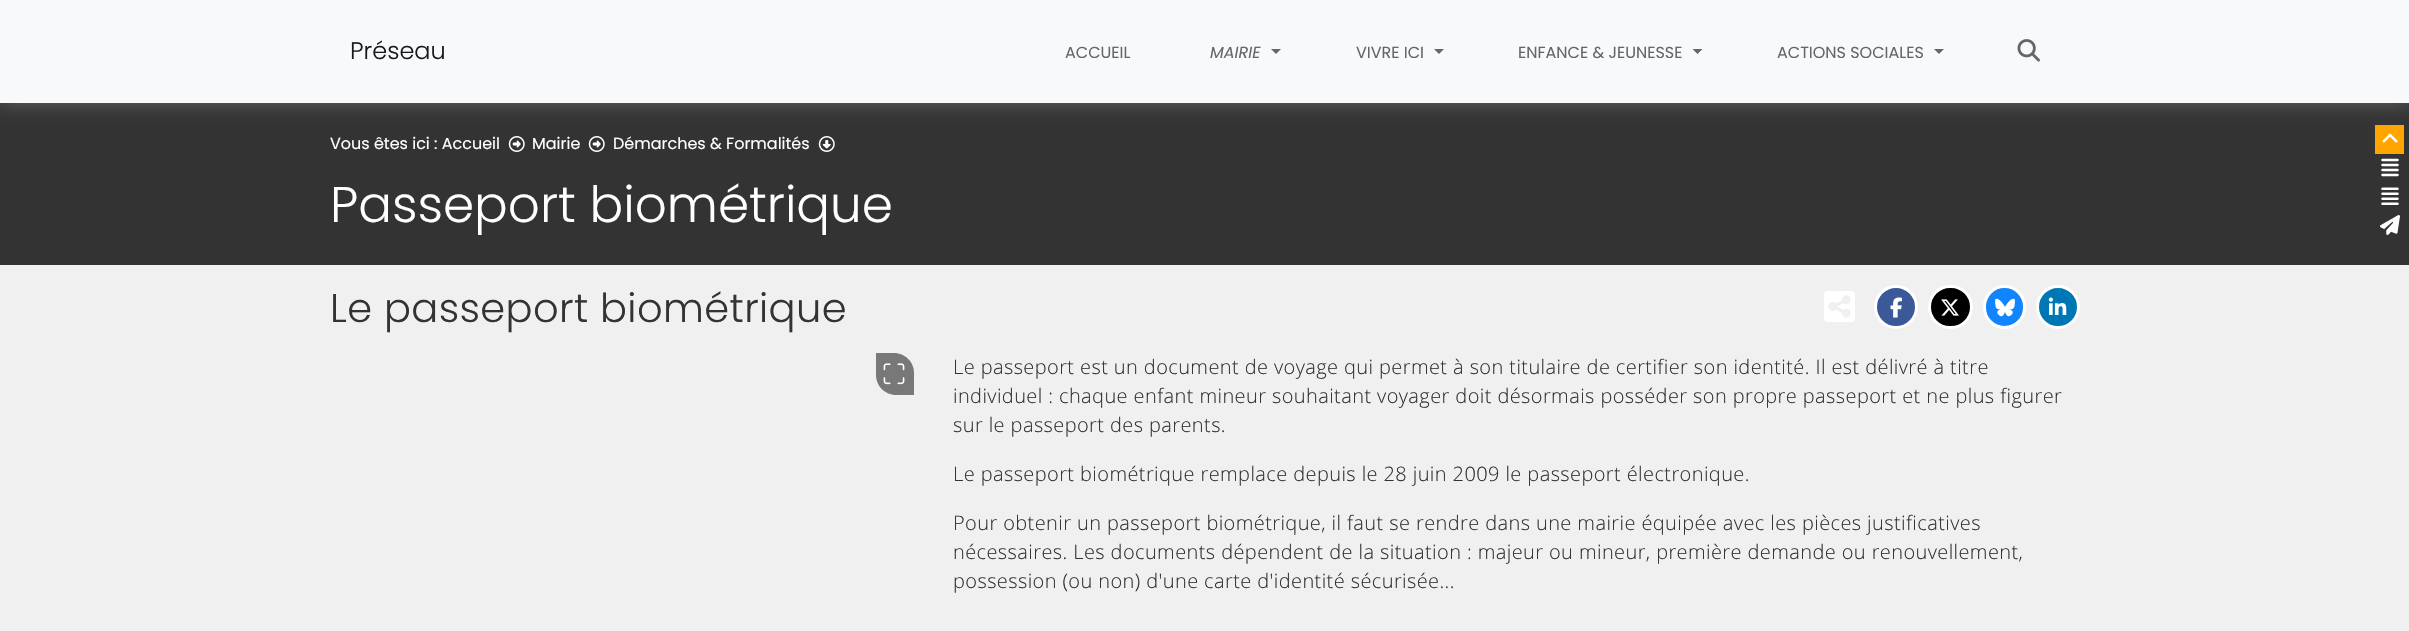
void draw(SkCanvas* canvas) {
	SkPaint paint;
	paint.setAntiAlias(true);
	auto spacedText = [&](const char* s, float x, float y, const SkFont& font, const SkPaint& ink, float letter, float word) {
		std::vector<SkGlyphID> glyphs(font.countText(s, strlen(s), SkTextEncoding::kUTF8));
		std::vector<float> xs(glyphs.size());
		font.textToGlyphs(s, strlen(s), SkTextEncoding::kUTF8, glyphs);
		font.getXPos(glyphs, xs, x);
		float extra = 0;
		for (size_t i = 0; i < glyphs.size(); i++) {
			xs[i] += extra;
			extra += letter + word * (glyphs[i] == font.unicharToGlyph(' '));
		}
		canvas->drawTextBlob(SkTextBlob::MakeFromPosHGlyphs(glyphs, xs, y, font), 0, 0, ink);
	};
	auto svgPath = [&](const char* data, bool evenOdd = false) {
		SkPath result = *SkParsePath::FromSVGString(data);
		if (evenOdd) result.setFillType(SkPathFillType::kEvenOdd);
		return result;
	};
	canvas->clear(0xfff0f0f0);
	paint.setColor(0xff333333);
	canvas->drawRect(SkRect::MakeXYWH(0, 103, 2409, 162), paint);
	paint.setColor(0xffffa500);
	canvas->drawRect(SkRect::MakeXYWH(2375, 125, 29, 29), paint);
	paint.setColor(0xff666666);
	paint.setMaskFilter(SkMaskFilter::MakeBlur(kNormal_SkBlurStyle, 9.5));
	canvas->drawRect(SkRect::MakeXYWH(0, 0, 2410, 103), paint);
	paint.setMaskFilter(nullptr);
	paint.setColor(0xfff8f9fa);
	canvas->drawRect(SkRect::MakeXYWH(0, 0, 2409, 103), paint);
	SkFont f1(fontMgr->matchFamilyStyle("Poppins", SkFontStyle(300, SkFontStyle::kNormal_Width, SkFontStyle::kUpright_Slant)), 24);
	f1.setSubpixel(true);
	paint.setColor(0xff191919);
	canvas->drawString("Préseau", 350, 59, f1, paint);
	SkFont f2(fontMgr->matchFamilyStyle("Poppins", SkFontStyle::Normal()), 16);
	f2.setSubpixel(true);
	paint.setColor(0xff666666);
	canvas->drawString("ACCUEIL", 1065, 58, f2, paint);
	SkFont f3(fontMgr->matchFamilyStyle("Poppins", SkFontStyle::Italic()), 16);
	f3.setSubpixel(true);
	canvas->drawString("MAIRIE", 1210, 58, f3, paint);
	canvas->drawPath(svgPath("M1271 49H1281L1276 54Z"), paint);
	canvas->drawString("VIVRE ICI", 1356, 58, f2, paint);
	canvas->drawPath(svgPath("M1434 49H1444L1439 54Z"), paint);
	canvas->drawString("ENFANCE & JEUNESSE", 1518, 58, f2, paint);
	canvas->drawPath(svgPath("M1692.5 49H1702.5L1697.5 54Z"), paint);
	canvas->drawString("ACTIONS SOCIALES", 1777, 58, f2, paint);
	canvas->drawPath(svgPath("M1934 49H1944L1939 54Z"), paint);
	canvas->drawImageRect(SkImages::DeferredFromEncodedData(SkData::MakeFromFileName("img1.png")), SkRect::MakeXYWH(2017, 39, 23, 23), SkSamplingOptions());
	paint.setColor(0xffffffff);
	canvas->drawString("Vous êtes ici : Accueil", 330, 149, f2, paint);
	canvas->drawImageRect(SkImages::DeferredFromEncodedData(SkData::MakeFromFileName("img2.png")), SkRect::MakeXYWH(508, 136, 17, 16), SkSamplingOptions());
	canvas->drawString("Mairie", 532, 149, f2, paint);
	canvas->drawImageRect(SkImages::DeferredFromEncodedData(SkData::MakeFromFileName("img2.png")), SkRect::MakeXYWH(588, 136, 17, 16), SkSamplingOptions());
	canvas->drawString("Démarches & Formalités", 613, 149, f2, paint);
	canvas->drawImageRect(SkImages::DeferredFromEncodedData(SkData::MakeFromFileName("img3.png")), SkRect::MakeXYWH(818, 136, 17, 16), SkSamplingOptions());
	SkFont f4(fontMgr->matchFamilyStyle("Poppins", SkFontStyle(300, SkFontStyle::kNormal_Width, SkFontStyle::kUpright_Slant)), 50);
	f4.setSubpixel(true);
	canvas->drawString("Passeport biométrique", 330, 222, f4, paint);
	canvas->drawImageRect(SkImages::DeferredFromEncodedData(SkData::MakeFromFileName("img4.png")), SkRect::MakeXYWH(1824, 291, 31, 31), SkSamplingOptions());
	paint.setColor(0xff3b5998);
	canvas->drawCircle(1896, 307, 20.5, paint);
	paint.setStroke(true);
	paint.setStrokeWidth(3);
	paint.setColor(0xffffffff);
	canvas->drawCircle(1896, 307, 20.5, paint);
	canvas->drawImageRect(SkImages::DeferredFromEncodedData(SkData::MakeFromFileName("img5.png")), SkRect::MakeXYWH(1890, 297, 12, 21), SkSamplingOptions());
	paint.setStroke(false);
	paint.setColor(0xff000000);
	canvas->drawRoundRect(SkRect::MakeXYWH(1929.5, 286.5, 42, 41), 20.5, 20.5, paint);
	paint.setStroke(true);
	paint.setColor(0xffffffff);
	canvas->drawRoundRect(SkRect::MakeXYWH(1929.5, 286.5, 42, 41), 20.5, 20.5, paint);
	canvas->drawImageRect(SkImages::DeferredFromEncodedData(SkData::MakeFromFileName("img6.png")), SkRect::MakeXYWH(1941, 299, 18, 17), SkSamplingOptions());
	paint.setStroke(false);
	paint.setColor(0xff1185fe);
	canvas->drawRoundRect(SkRect::MakeXYWH(1984.5, 286.5, 40, 41), 20, 20, paint);
	paint.setStroke(true);
	paint.setColor(0xffffffff);
	canvas->drawRoundRect(SkRect::MakeXYWH(1984.5, 286.5, 40, 41), 20, 20, paint);
	canvas->drawImageRect(SkImages::DeferredFromEncodedData(SkData::MakeFromFileName("img7.png")), SkRect::MakeXYWH(1995, 298, 20, 19), SkSamplingOptions());
	paint.setStroke(false);
	paint.setColor(0xff0077b5);
	canvas->drawCircle(2058, 307, 20.5, paint);
	paint.setStroke(true);
	paint.setColor(0xffffffff);
	canvas->drawCircle(2058, 307, 20.5, paint);
	canvas->drawImageRect(SkImages::DeferredFromEncodedData(SkData::MakeFromFileName("img8.png")), SkRect::MakeXYWH(2048, 297, 19, 18), SkSamplingOptions());
	canvas->drawImageRect(SkImages::DeferredFromEncodedData(SkData::MakeFromFileName("img9.png")), SkRect::MakeXYWH(2382, 133, 16, 10), SkSamplingOptions());
	canvas->drawImageRect(SkImages::DeferredFromEncodedData(SkData::MakeFromFileName("img10.png")), SkRect::MakeXYWH(2381, 158, 18, 19), SkSamplingOptions());
	canvas->drawImageRect(SkImages::DeferredFromEncodedData(SkData::MakeFromFileName("img11.png")), SkRect::MakeXYWH(2381, 187, 18, 18), SkSamplingOptions());
	canvas->drawImageRect(SkImages::DeferredFromEncodedData(SkData::MakeFromFileName("img12.png")), SkRect::MakeXYWH(2380, 215, 20, 20), SkSamplingOptions());
	SkFont f5(fontMgr->matchFamilyStyle("Poppins", SkFontStyle(300, SkFontStyle::kNormal_Width, SkFontStyle::kUpright_Slant)), 40);
	f5.setSubpixel(true);
	paint.setStroke(false);
	paint.setColor(0xff333333);
	spacedText("Le passeport biométrique", 330, 322, f5, paint, 0.4, 0);
	paint.setColor(0xff787878);
	canvas->drawPath(svgPath("M876 353H894C905 353 914 362 914 373V395H896C885 395 876 386 876 375Z"), paint);
	canvas->drawImageRect(SkImages::DeferredFromEncodedData(SkData::MakeFromFileName("img13.png")), SkRect::MakeXYWH(883, 363, 22, 22), SkSamplingOptions());
	SkFont f6(fontMgr->matchFamilyStyle("Open Sans", SkFontStyle(300, SkFontStyle::kNormal_Width, SkFontStyle::kUpright_Slant)), 20);
	f6.setSubpixel(true);
	paint.setColor(0xff333333);
	spacedText("Le passeport est un document de voyage qui permet à son titulaire de certifier son identité. Il est délivré à titre", 953, 374, f6, paint, 0.4, 0);
	spacedText("individuel : chaque enfant mineur souhaitant voyager doit désormais posséder son propre passeport et ne plus figurer", 953, 403, f6, paint, 0.4, 0);
	spacedText("sur le passeport des parents.", 953, 432, f6, paint, 0.4, 0);
	spacedText("Le passeport biométrique remplace depuis le 28 juin 2009 le passeport électronique.", 953, 481, f6, paint, 0.4, 0);
	spacedText("Pour obtenir un passeport biométrique, il faut se rendre dans une mairie équipée avec les pièces justificatives", 953, 530, f6, paint, 0.4, 0);
	spacedText("nécessaires. Les documents dépendent de la situation : majeur ou mineur, première demande ou renouvellement,", 953, 559, f6, paint, 0.4, 0);
	spacedText("possession (ou non) d'une carte d'identité sécurisée...", 953, 588, f6, paint, 0.4, 0);
}
